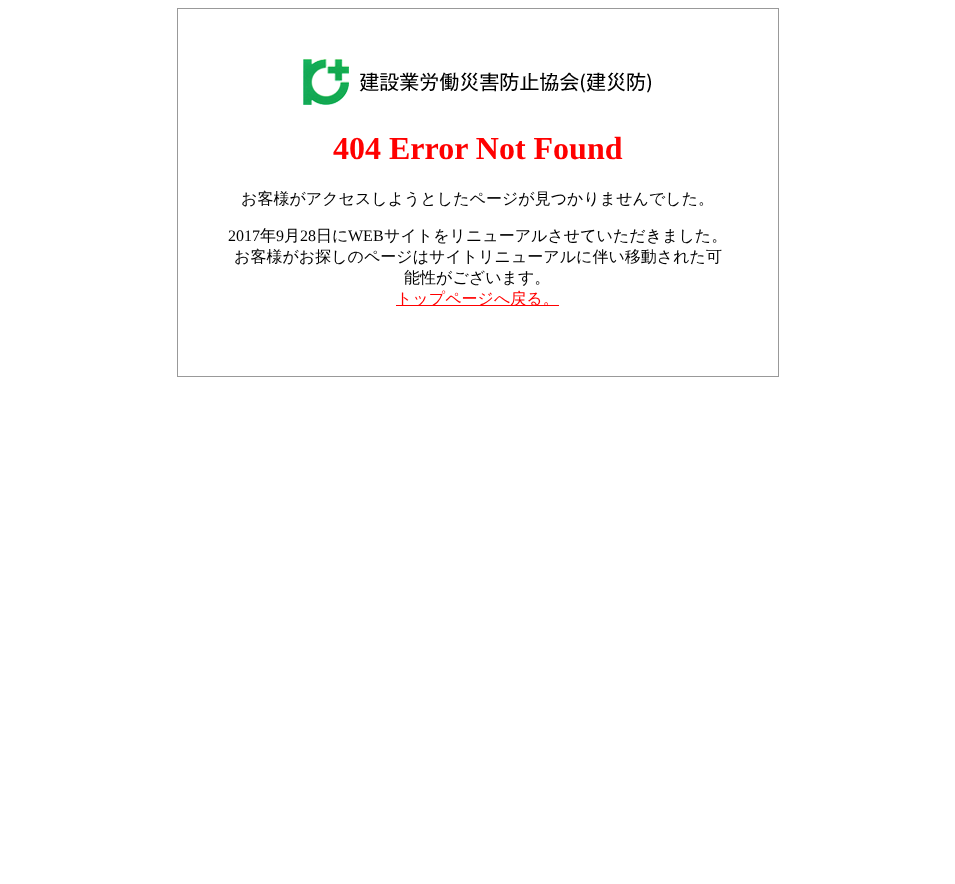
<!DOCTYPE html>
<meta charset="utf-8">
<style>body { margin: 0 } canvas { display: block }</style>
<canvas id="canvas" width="955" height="884"></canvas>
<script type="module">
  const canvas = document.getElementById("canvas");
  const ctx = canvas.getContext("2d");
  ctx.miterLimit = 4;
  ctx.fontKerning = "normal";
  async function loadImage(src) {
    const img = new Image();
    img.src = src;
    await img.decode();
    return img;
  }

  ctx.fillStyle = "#ffffff";
  ctx.fillRect(0, 0, 955, 884);
  ctx.strokeStyle = "#999999";
  ctx.strokeRect(177.5, 8.5, 601, 368);
  ctx.drawImage(await loadImage("img1.png"), 303, 59, 348, 46);
  ctx.font = "bold 32px Liberation Serif";
  ctx.fillStyle = "#ff0000";
  ctx.fillText("404 Error Not Found", 333, 159);
  ctx.font = "500 16px WenQuanYi Zen Hei";
  ctx.fillStyle = "#000000";
  ctx.fillText("お客様がアクセスしようとしたページが見つかりませんでした。", 241, 204);
  ctx.font = "16px Liberation Serif";
  ctx.fillText("2017", 228, 241);
  ctx.font = "500 16px WenQuanYi Zen Hei";
  ctx.fillText("年", 260, 241);
  ctx.font = "16px Liberation Serif";
  ctx.fillText("9", 276, 241);
  ctx.font = "500 16px WenQuanYi Zen Hei";
  ctx.fillText("月", 284, 241);
  ctx.font = "16px Liberation Serif";
  ctx.fillText("28", 300, 241);
  ctx.font = "500 16px WenQuanYi Zen Hei";
  ctx.fillText("日に", 316, 241);
  ctx.font = "16px Liberation Serif";
  ctx.fillText("WEB", 348, 241);
  ctx.font = "500 16px WenQuanYi Zen Hei";
  ctx.fillText("サイトをリニューアルさせていただきました。", 384, 241);
  ctx.fillText("お客様がお探しのページはサイトリニューアルに伴い移動された可", 234, 262);
  ctx.fillText("能性がございます。", 404, 283);
  ctx.fillStyle = "#ff0000";
  ctx.fillRect(396, 305, 163, 1);
  ctx.fillText("トップページへ戻る。", 396, 304);
</script>
